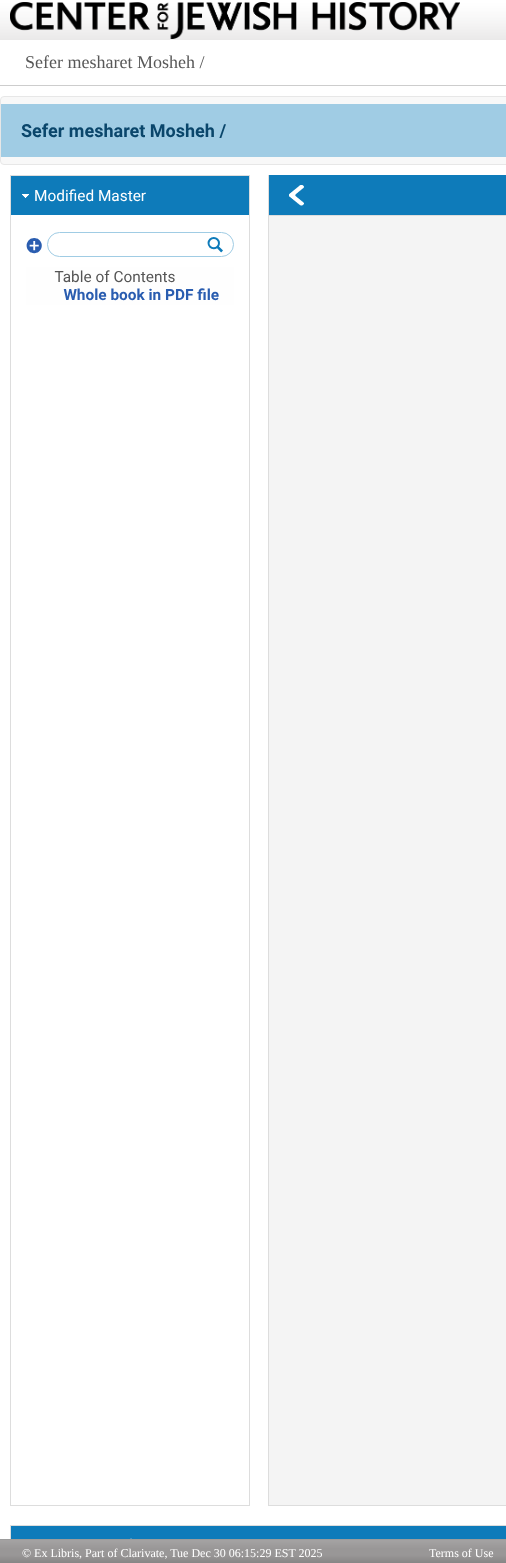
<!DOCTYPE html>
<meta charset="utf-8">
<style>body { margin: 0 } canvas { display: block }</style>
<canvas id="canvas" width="506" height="1563"></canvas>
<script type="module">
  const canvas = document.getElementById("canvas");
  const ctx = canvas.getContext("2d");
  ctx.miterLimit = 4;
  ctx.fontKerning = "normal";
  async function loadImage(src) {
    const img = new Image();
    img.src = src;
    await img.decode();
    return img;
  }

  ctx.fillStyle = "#ffffff";
  ctx.fillRect(0, 0, 506, 1563);
  ctx.drawImage(await loadImage("img1.png"), 0, 0, 506, 40);
  ctx.drawImage(await loadImage("img2.png"), 10, 2, 450, 37);
  ctx.font = "18px Liberation Serif";
  ctx.fillStyle = "#585858";
  ctx.fillText("Sefer mesharet Mosheh /", 25, 68);
  ctx.fillStyle = "#cdcdcd";
  ctx.fillRect(0, 85, 506, 1);
  ctx.drawImage(await loadImage("img3.png"), 0, 96, 506, 1443);
  ctx.fillStyle = "#999797";
  ctx.fillRect(0, 1540, 506, 23);
  ctx.drawImage(await loadImage("img4.png"), 0, 1539, 506, 24);
  ctx.font = "12px Liberation Serif";
  ctx.fillStyle = "#ffffff";
  ctx.fillText("© Ex Libris, Part of Clarivate, Tue Dec 30 06:15:29 EST 2025", 22, 1557);
  ctx.fillText("Terms of Use", 429, 1557);
</script>
